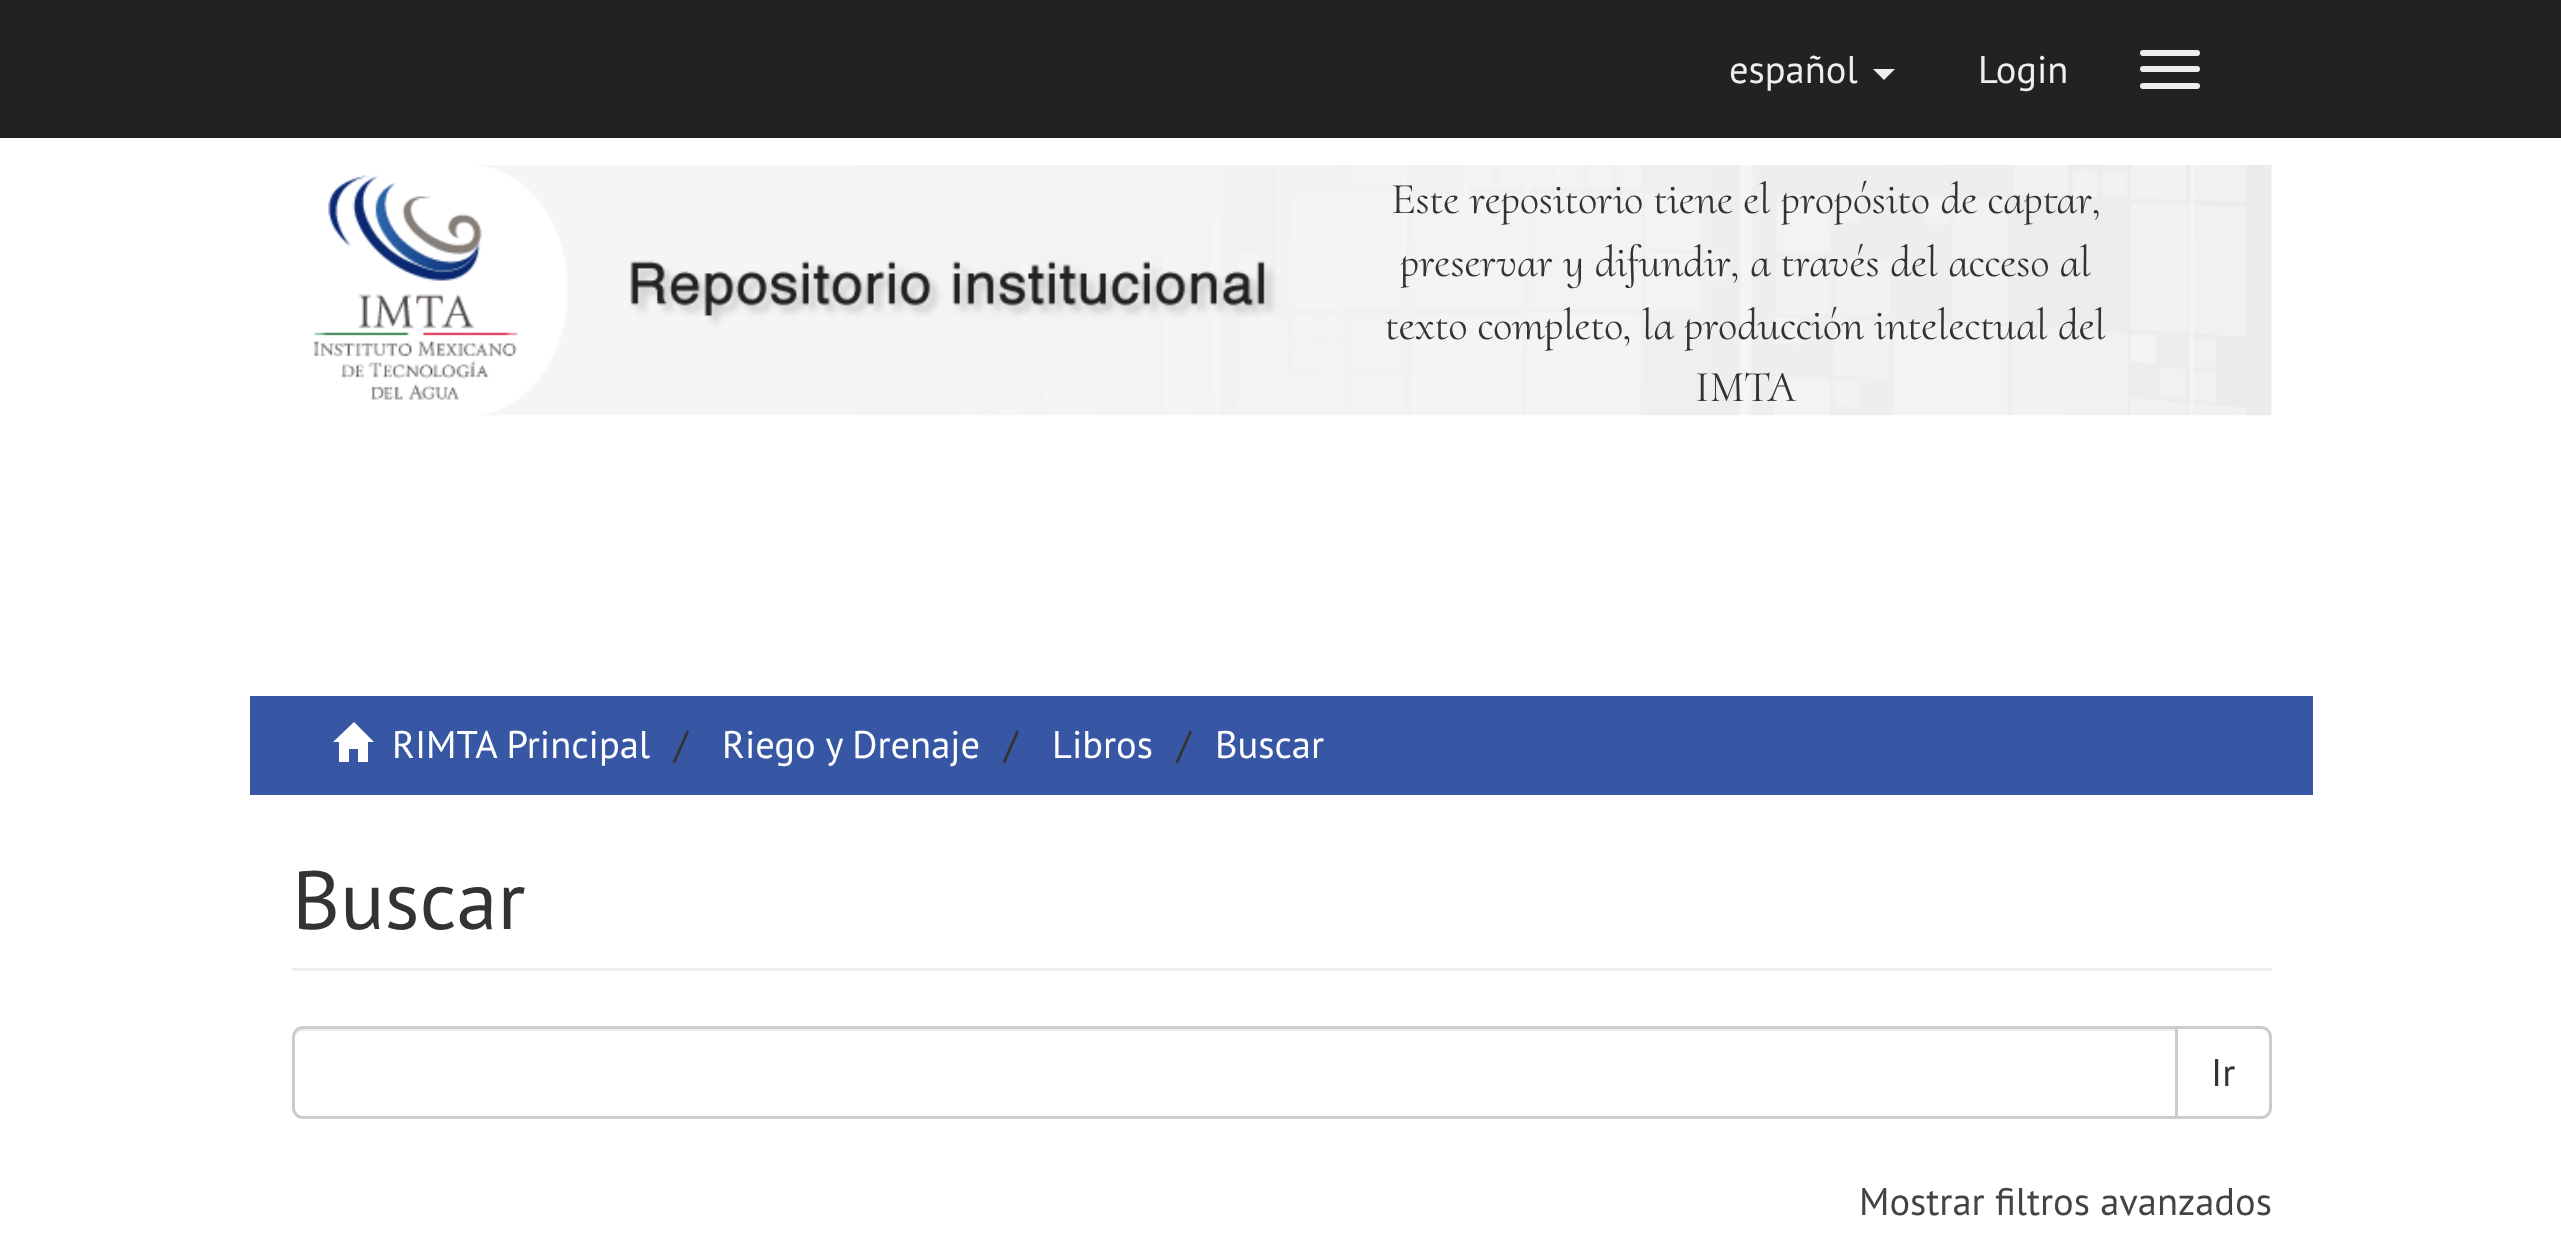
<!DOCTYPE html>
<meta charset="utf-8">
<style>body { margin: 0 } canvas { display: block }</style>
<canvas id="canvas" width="2561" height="1242"></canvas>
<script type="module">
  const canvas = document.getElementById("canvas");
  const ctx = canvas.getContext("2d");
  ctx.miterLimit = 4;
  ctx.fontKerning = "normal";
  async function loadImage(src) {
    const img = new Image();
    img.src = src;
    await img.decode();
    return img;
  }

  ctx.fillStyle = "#ffffff";
  ctx.fillRect(0, 0, 2561, 1242);
  ctx.fillStyle = "#222222";
  ctx.fillRect(0, 0, 2561, 138);
  ctx.font = "38.5px PT Sans";
  ctx.fillStyle = "#eeeeee";
  ctx.fillText("español", 1729, 83);
  ctx.beginPath();
  ctx.moveTo(1873, 69);
  ctx.lineTo(1895, 69);
  ctx.lineTo(1884, 80);
  ctx.closePath();
  ctx.fill();
  ctx.fillText("Login", 1978, 83);
  ctx.beginPath();
  ctx.roundRect(2140, 50, 60, 6, 3);
  ctx.fill();
  ctx.beginPath();
  ctx.roundRect(2140, 66, 60, 6, 3);
  ctx.fill();
  ctx.beginPath();
  ctx.roundRect(2140, 83, 60, 6, 3);
  ctx.fill();
  ctx.drawImage(await loadImage("img1.png"), 312, 165, 1960, 251);
  ctx.font = "44px Cormorant Upright";
  ctx.fillStyle = "#333333";
  ctx.fillText("Este repositorio tiene el propósito de captar,", 1391, 213);
  ctx.fillText("preservar y difundir, a través del acceso al", 1400, 276);
  ctx.fillText("texto completo, la producción intelectual del", 1385, 339);
  ctx.fillText("IMTA", 1695, 401);
  ctx.fillStyle = "#3757a4";
  ctx.fillRect(250, 696, 2063, 99);
  ctx.fillStyle = "#ffffff";
  ctx.beginPath();
  ctx.moveTo(333, 742);
  ctx.lineTo(354, 722);
  ctx.lineTo(374, 742);
  ctx.lineTo(368, 742);
  ctx.lineTo(368, 762);
  ctx.lineTo(358, 762);
  ctx.lineTo(358, 749);
  ctx.lineTo(349, 749);
  ctx.lineTo(349, 762);
  ctx.lineTo(339, 762);
  ctx.lineTo(339, 742);
  ctx.closePath();
  ctx.fill();
  ctx.font = "38.5px PT Sans";
  ctx.fillText("RIMTA Principal", 392, 758);
  ctx.fillStyle = "#333333";
  ctx.fillText("/", 674, 758);
  ctx.fillStyle = "#ffffff";
  ctx.fillText("Riego y Drenaje", 722, 758);
  ctx.fillStyle = "#333333";
  ctx.fillText("/", 1004, 758);
  ctx.fillStyle = "#ffffff";
  ctx.fillText("Libros", 1052, 758);
  ctx.fillStyle = "#333333";
  ctx.fillText("/", 1177, 758);
  ctx.fillStyle = "#ffffff";
  ctx.fillText("Buscar", 1215, 758);
  ctx.fillStyle = "#eeeeee";
  ctx.fillRect(292, 968, 1980, 3);
  ctx.font = "82.5px PT Sans";
  ctx.fillStyle = "#333333";
  ctx.fillText("Buscar", 292, 929);
  ctx.beginPath();
  ctx.roundRect(2176.5, 1027.5, 94, 90, [0, 9.5, 9.5, 0]);
  ctx.strokeStyle = "#cccccc";
  ctx.lineWidth = 3;
  ctx.stroke();
  ctx.fillStyle = "#ffffff";
  ctx.beginPath();
  ctx.roundRect(292, 1026, 1886, 93, [11, 0, 0, 11]);
  ctx.fill();
  ctx.fillStyle = "#ececec";
  ctx.beginPath();
  ctx.moveTo(302, 1031);
  ctx.lineTo(2175, 1031);
  ctx.lineTo(2175, 1029);
  ctx.lineTo(302, 1029);
  ctx.bezierCurveTo(296, 1029, 294, 1035, 294, 1040);
  ctx.bezierCurveTo(294, 1035, 298, 1031, 302, 1031);
  ctx.closePath();
  ctx.fill();
  ctx.beginPath();
  ctx.roundRect(293.5, 1027.5, 1883, 90, [9.5, 0, 0, 9.5]);
  ctx.stroke();
  ctx.font = "38.5px PT Sans";
  ctx.fillStyle = "#333333";
  ctx.fillText("Ir", 2211, 1086);
  ctx.fillStyle = "#444444";
  ctx.fillText("Mostrar filtros avanzados", 1859, 1215);
</script>
